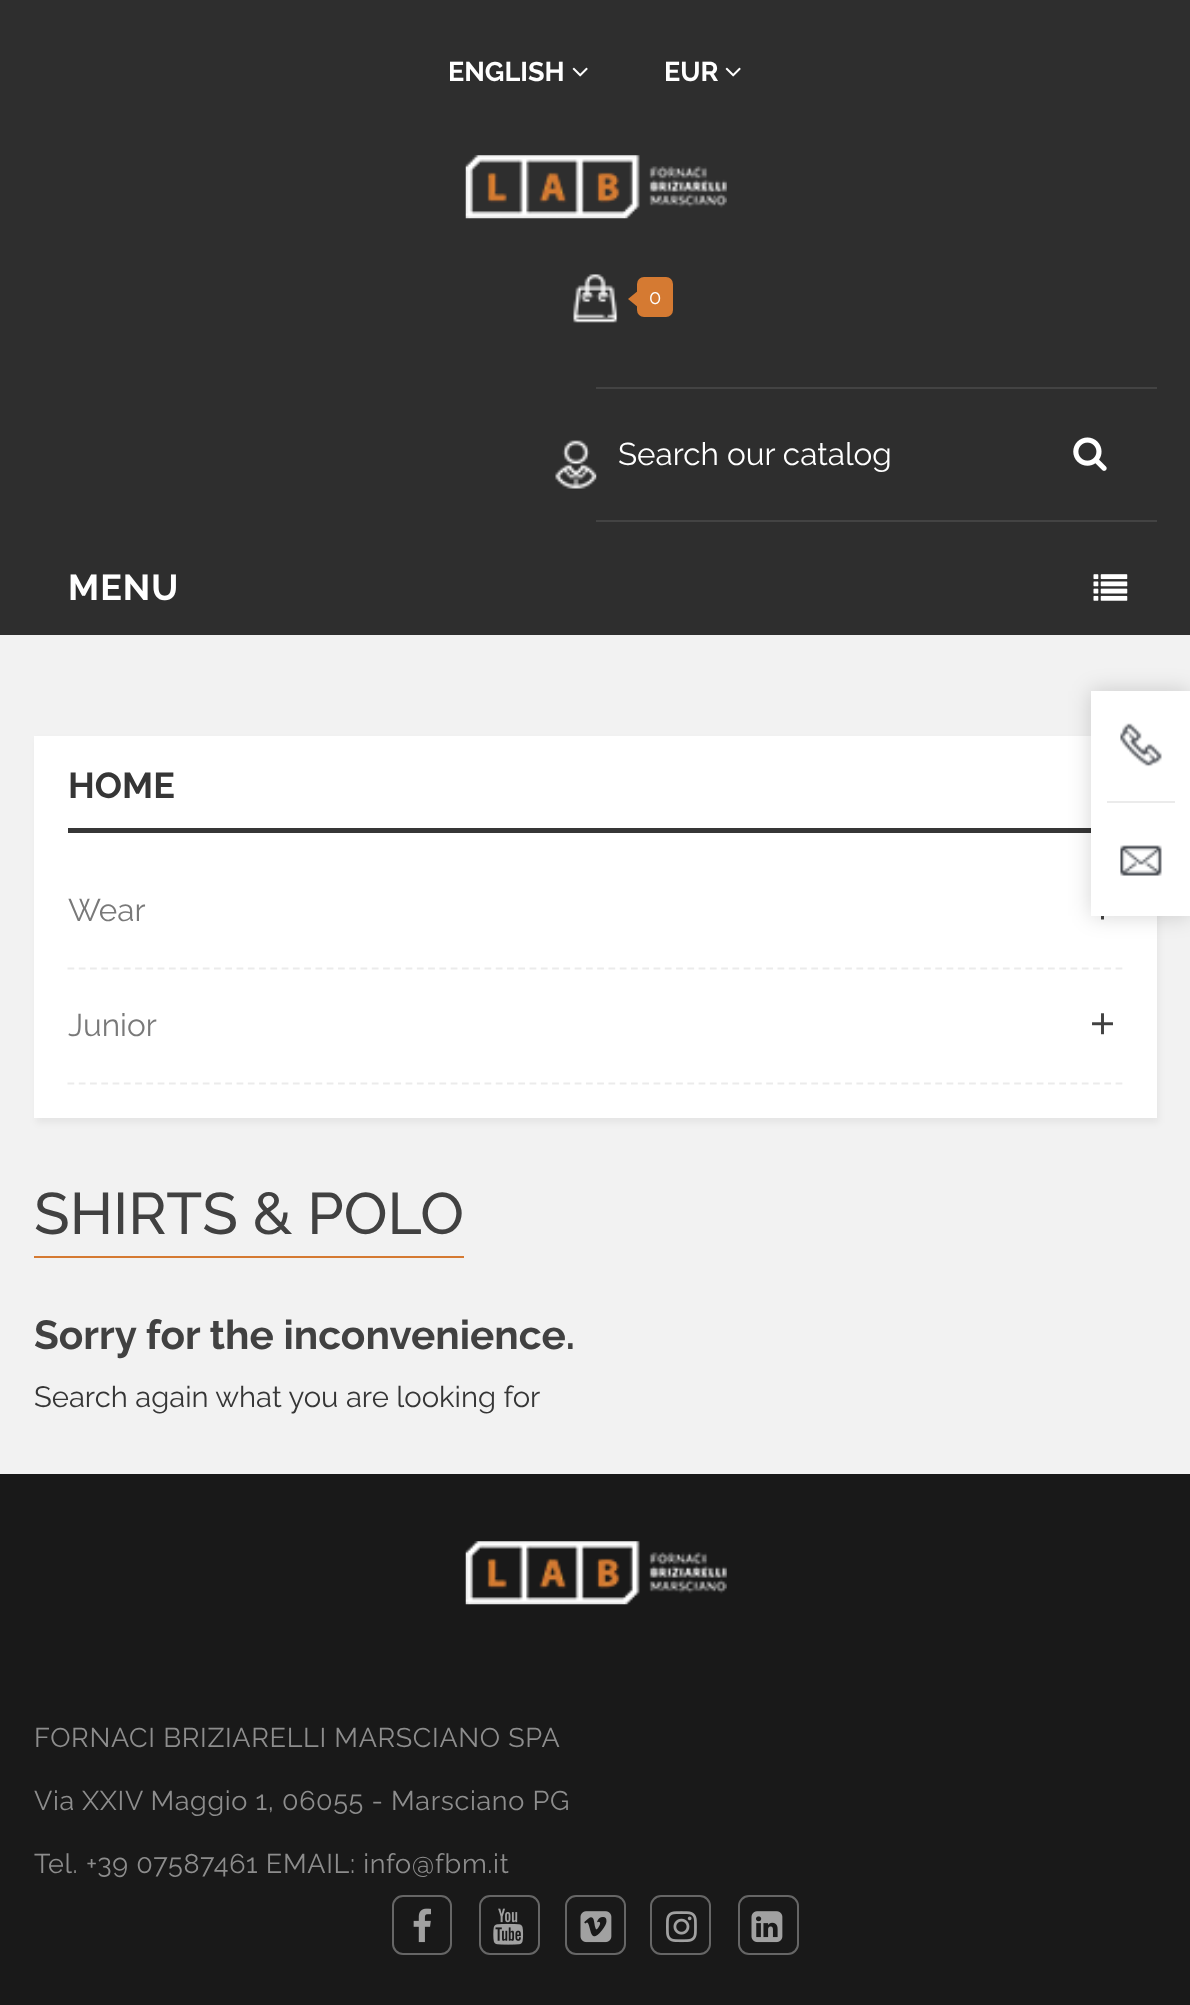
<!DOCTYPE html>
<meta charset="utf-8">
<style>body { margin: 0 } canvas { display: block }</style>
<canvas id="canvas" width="1190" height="2005"></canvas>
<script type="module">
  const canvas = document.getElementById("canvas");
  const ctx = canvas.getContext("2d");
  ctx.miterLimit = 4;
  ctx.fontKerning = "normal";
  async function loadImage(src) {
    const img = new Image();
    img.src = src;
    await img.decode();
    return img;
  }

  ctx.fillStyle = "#f2f2f2";
  ctx.fillRect(0, 0, 1190, 2005);
  ctx.fillStyle = "#2e2e2e";
  ctx.fillRect(0, 0, 1190, 635);
  ctx.font = "bold 27px Raleway";
  ctx.fillStyle = "#ffffff";
  ctx.fillText("ENGLISH", 448, 81);
  ctx.drawImage(await loadImage("img1.png"), 572, 67, 16, 10);
  ctx.fillText("EUR", 664, 81);
  ctx.drawImage(await loadImage("img1.png"), 725, 67, 16, 10);
  ctx.drawImage(await loadImage("img2.png"), 465, 155, 262, 64);
  ctx.drawImage(await loadImage("img3.png"), 573, 274, 45, 49);
  ctx.fillStyle = "#d57a32";
  ctx.beginPath();
  ctx.roundRect(637, 277, 36, 40, 7);
  ctx.fill();
  ctx.beginPath();
  ctx.moveTo(639, 290);
  ctx.lineTo(639, 308);
  ctx.lineTo(628, 299);
  ctx.closePath();
  ctx.fill();
  ctx.font = "20px Raleway";
  ctx.fillStyle = "#ffffff";
  ctx.fillText("0", 649, 304);
  ctx.drawImage(await loadImage("img4.png"), 555, 440, 42, 49);
  ctx.fillStyle = "#434343";
  ctx.fillRect(596, 387, 561, 2);
  ctx.fillRect(596, 520, 561, 2);
  ctx.font = "31.5px Raleway";
  ctx.fillStyle = "#ffffff";
  ctx.fillText("Search our catalog", 618, 465);
  ctx.drawImage(await loadImage("img5.png"), 1073, 437, 34, 34);
  ctx.letterSpacing = "1px";
  ctx.font = "bold 36px Raleway";
  ctx.fillText("MENU", 68, 600);
  ctx.drawImage(await loadImage("img6.png"), 1093, 574, 35, 27);
  ctx.fillStyle = "rgba(0, 0, 0, 0.05)";
  ctx.filter = "blur(3.5px)";
  ctx.beginPath();
  ctx.rect(36, 740, 1123, 383);
  ctx.fill();
  ctx.filter = "none";
  ctx.fillStyle = "#ffffff";
  ctx.fillRect(34, 736, 1123, 382);
  ctx.fillStyle = "#363636";
  ctx.fillRect(68, 828, 1023, 5);
  ctx.drawImage(await loadImage("img9.png"), 1101, 916, 3, 4);
  ctx.fillStyle = "rgba(0, 0, 0, 0.17)";
  ctx.filter = "blur(11px)";
  ctx.beginPath();
  ctx.rect(1091, 691, 99, 225);
  ctx.fill();
  ctx.filter = "none";
  ctx.fillStyle = "#ffffff";
  ctx.fillRect(1091, 691, 99, 225);
  ctx.drawImage(await loadImage("img7.png"), 1120, 723, 42, 44);
  ctx.fillStyle = "#ebebeb";
  ctx.fillRect(1107, 801, 68, 2);
  ctx.drawImage(await loadImage("img8.png"), 1120, 845, 42, 31);
  ctx.letterSpacing = "0px";
  ctx.fillStyle = "#363636";
  ctx.fillText("HOME", 68, 798);
  ctx.beginPath();
  ctx.moveTo(67.5, 968.5);
  ctx.lineTo(1123, 968.5);
  ctx.strokeStyle = "#ebebeb";
  ctx.lineWidth = 2.2;
  ctx.setLineDash([6.75, 4.52]);
  ctx.stroke();
  ctx.font = "31.5px Raleway";
  ctx.fillStyle = "#797979";
  ctx.fillText("Wear", 68, 921);
  ctx.beginPath();
  ctx.moveTo(67.5, 1083.5);
  ctx.lineTo(1123, 1083.5);
  ctx.stroke();
  ctx.fillText("Junior", 68, 1036);
  ctx.drawImage(await loadImage("img10.png"), 1092, 1013, 21, 22);
  ctx.fillStyle = "#d57a32";
  ctx.fillRect(34, 1256, 430, 2);
  ctx.font = "500 58.5px Raleway";
  ctx.fillStyle = "#414141";
  ctx.fillText("SHIRTS & POLO", 34, 1234);
  ctx.font = "bold 40.5px Raleway";
  ctx.fillText("Sorry for the inconvenience.", 34, 1349);
  ctx.font = "29.25px Raleway";
  ctx.fillStyle = "#363636";
  ctx.fillText("Search again what you are looking for", 34, 1407);
  ctx.fillStyle = "#191919";
  ctx.fillRect(0, 1474, 1190, 531);
  ctx.drawImage(await loadImage("img11.png"), 465, 1541, 262, 64);
  ctx.letterSpacing = "0.65px";
  ctx.font = "27px Raleway";
  ctx.fillStyle = "#8d8d8d";
  ctx.fillText("FORNACI BRIZIARELLI MARSCIANO SPA", 34, 1747);
  ctx.fillText("Via XXIV Maggio 1, 06055 - Marsciano PG", 34, 1810);
  ctx.fillText("Tel. +39 07587461 EMAIL: info@fbm.it", 34, 1873);
  ctx.beginPath();
  ctx.roundRect(393, 1896, 58, 58, 10);
  ctx.strokeStyle = "#666666";
  ctx.lineWidth = 2;
  ctx.setLineDash([]);
  ctx.stroke();
  ctx.drawImage(await loadImage("img12.png"), 413, 1908, 18, 35);
  ctx.beginPath();
  ctx.roundRect(480, 1896, 59, 58, 10);
  ctx.stroke();
  ctx.drawImage(await loadImage("img13.png"), 493, 1908, 31, 37);
  ctx.beginPath();
  ctx.roundRect(566, 1896, 59, 58, 10);
  ctx.stroke();
  ctx.drawImage(await loadImage("img14.png"), 580, 1911, 32, 32);
  ctx.beginPath();
  ctx.roundRect(651, 1896, 59, 58, 10);
  ctx.stroke();
  ctx.drawImage(await loadImage("img15.png"), 666, 1911, 31, 32);
  ctx.beginPath();
  ctx.roundRect(739, 1896, 59, 58, 10);
  ctx.stroke();
  ctx.drawImage(await loadImage("img16.png"), 751, 1911, 32, 32);
</script>
